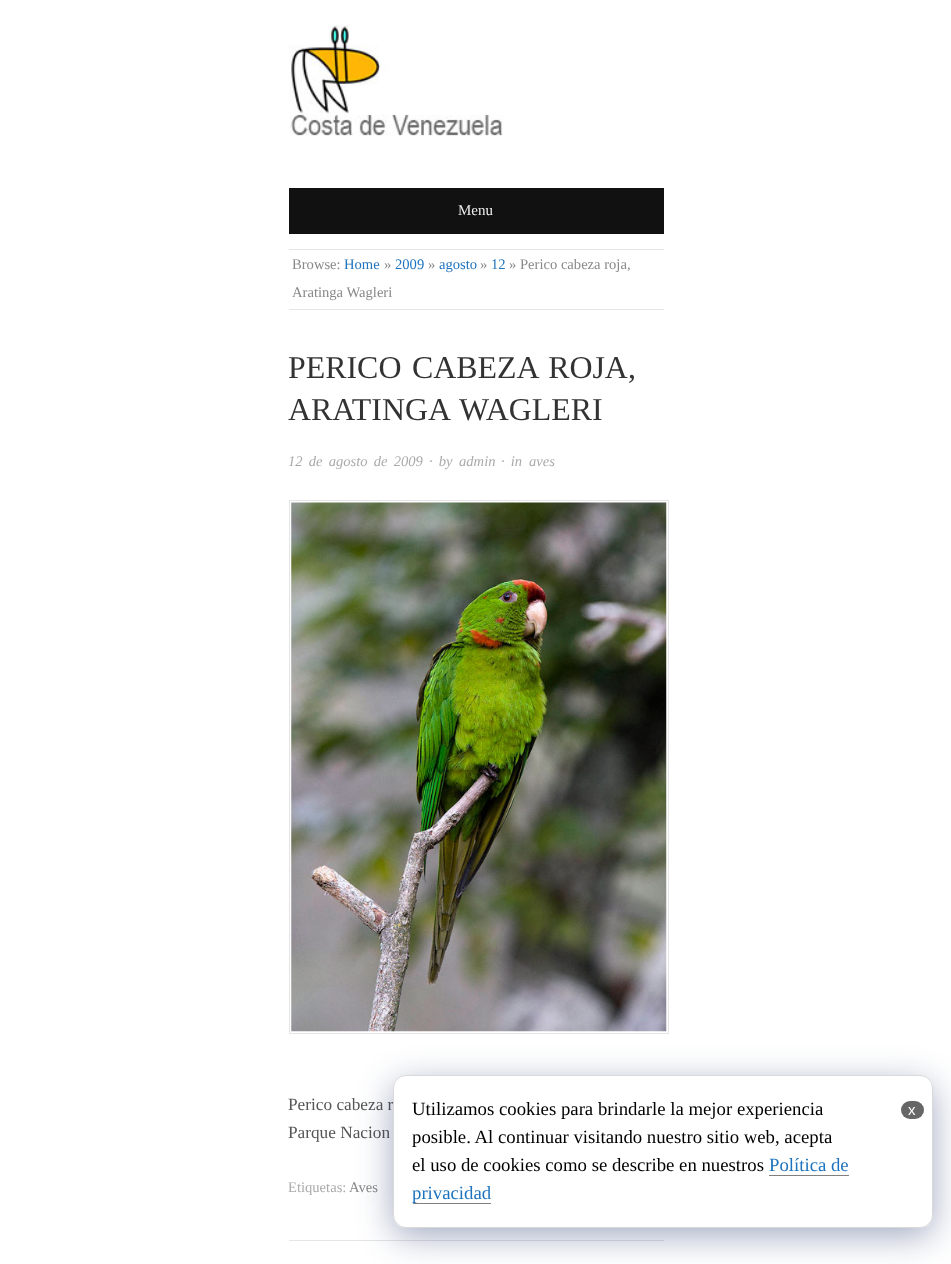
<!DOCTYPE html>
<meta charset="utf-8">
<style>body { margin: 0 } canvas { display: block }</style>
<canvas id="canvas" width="951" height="1264"></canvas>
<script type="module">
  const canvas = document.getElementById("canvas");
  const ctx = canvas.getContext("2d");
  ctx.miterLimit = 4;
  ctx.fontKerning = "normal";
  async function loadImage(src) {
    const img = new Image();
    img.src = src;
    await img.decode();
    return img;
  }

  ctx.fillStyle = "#ffffff";
  ctx.fillRect(0, 0, 951, 1264);
  ctx.drawImage(await loadImage("img1.png"), 289, 25, 214, 111);
  ctx.fillStyle = "#111111";
  ctx.fillRect(289, 188, 375, 46);
  ctx.font = "15px Liberation Serif";
  ctx.fillStyle = "#eeeeee";
  ctx.fillText("Menu", 458, 215);
  ctx.fillStyle = "#e5e5e5";
  ctx.fillRect(289, 249, 375, 1);
  ctx.fillRect(289, 309, 375, 1);
  ctx.font = "14.6px Liberation Serif";
  ctx.fillStyle = "#888888";
  ctx.fillText("Browse:", 292, 269);
  ctx.fillStyle = "#1e73be";
  ctx.fillText("Home", 344, 269);
  ctx.fillStyle = "#888888";
  ctx.fillText("»", 384, 269);
  ctx.fillStyle = "#1e73be";
  ctx.fillText("2009", 395, 269);
  ctx.fillStyle = "#888888";
  ctx.fillText("»", 428, 269);
  ctx.fillStyle = "#1e73be";
  ctx.fillText("agosto", 439, 269);
  ctx.fillStyle = "#888888";
  ctx.fillText("»", 480, 269);
  ctx.fillStyle = "#1e73be";
  ctx.fillText("12", 491, 269);
  ctx.fillStyle = "#888888";
  ctx.fillText("» Perico cabeza roja,", 509, 269);
  ctx.fillText("Aratinga Wagleri", 292, 297);
  ctx.fillStyle = "#e5e5e5";
  ctx.fillRect(289, 1240, 375, 1);
  ctx.wordSpacing = "2.5px";
  ctx.font = "31.9px Liberation Serif";
  ctx.fillStyle = "#333333";
  ctx.fillText("PERICO CABEZA ROJA,", 288, 378);
  ctx.fillText("ARATINGA WAGLERI", 288, 420);
  ctx.font = "italic 14.6px Liberation Serif";
  ctx.fillStyle = "#aaaaaa";
  ctx.fillText("12 de agosto de 2009", 288, 466);
  ctx.fillText("· by", 429, 466);
  ctx.wordSpacing = "0px";
  ctx.fillText("admin", 459, 466);
  ctx.wordSpacing = "2.5px";
  ctx.fillText("· in", 501, 466);
  ctx.wordSpacing = "0px";
  ctx.fillText("aves", 529, 466);
  ctx.strokeStyle = "#e5e5e5";
  ctx.strokeRect(289.5, 500.5, 379, 533);
  ctx.drawImage(await loadImage("img2.png"), 291, 502, 376, 530);
  ctx.font = "17.25px Liberation Serif";
  ctx.fillStyle = "#555555";
  ctx.fillText("Perico cabeza r", 288, 1110);
  ctx.fillText("Parque Nacion", 288, 1138);
  ctx.font = "14.6px Liberation Serif";
  ctx.fillStyle = "#aaaaaa";
  ctx.fillText("Etiquetas:", 288, 1192);
  ctx.fillStyle = "#888888";
  ctx.fillText("Aves", 349, 1192);
  ctx.fillStyle = "rgba(23, 43, 99, 0.4)";
  ctx.filter = "blur(17.5px)";
  ctx.beginPath();
  ctx.roundRect(393, 1084, 540, 152, 13);
  ctx.fill();
  ctx.filter = "none";
  ctx.fillStyle = "#ffffff";
  ctx.beginPath();
  ctx.roundRect(393, 1075, 540, 153, 13);
  ctx.fill();
  ctx.beginPath();
  ctx.roundRect(393.5, 1075.5, 539, 152, 12.5);
  ctx.strokeStyle = "rgba(0, 0, 0, 0.15)";
  ctx.stroke();
  ctx.font = "18.75px Liberation Serif";
  ctx.fillStyle = "#000000";
  ctx.fillText("Utilizamos cookies para brindarle la mejor experiencia", 412, 1115);
  ctx.fillText("posible. Al continuar visitando nuestro sitio web, acepta", 412, 1143);
  ctx.fillText("el uso de cookies como se describe en nuestros", 412, 1171);
  ctx.fillStyle = "#1e73be";
  ctx.fillText("Política de", 769, 1171);
  ctx.fillStyle = "#808080";
  ctx.fillRect(769, 1175, 80, 1);
  ctx.fillStyle = "#1e73be";
  ctx.fillText("privacidad", 412, 1199);
  ctx.fillStyle = "#808080";
  ctx.fillRect(413, 1203, 78, 1);
  ctx.fillStyle = "#666666";
  ctx.beginPath();
  ctx.roundRect(901, 1101, 23, 18, 9);
  ctx.fill();
  ctx.font = "15px Liberation Sans";
  ctx.fillStyle = "#ffffff";
  ctx.fillText("x", 908, 1115);
</script>
